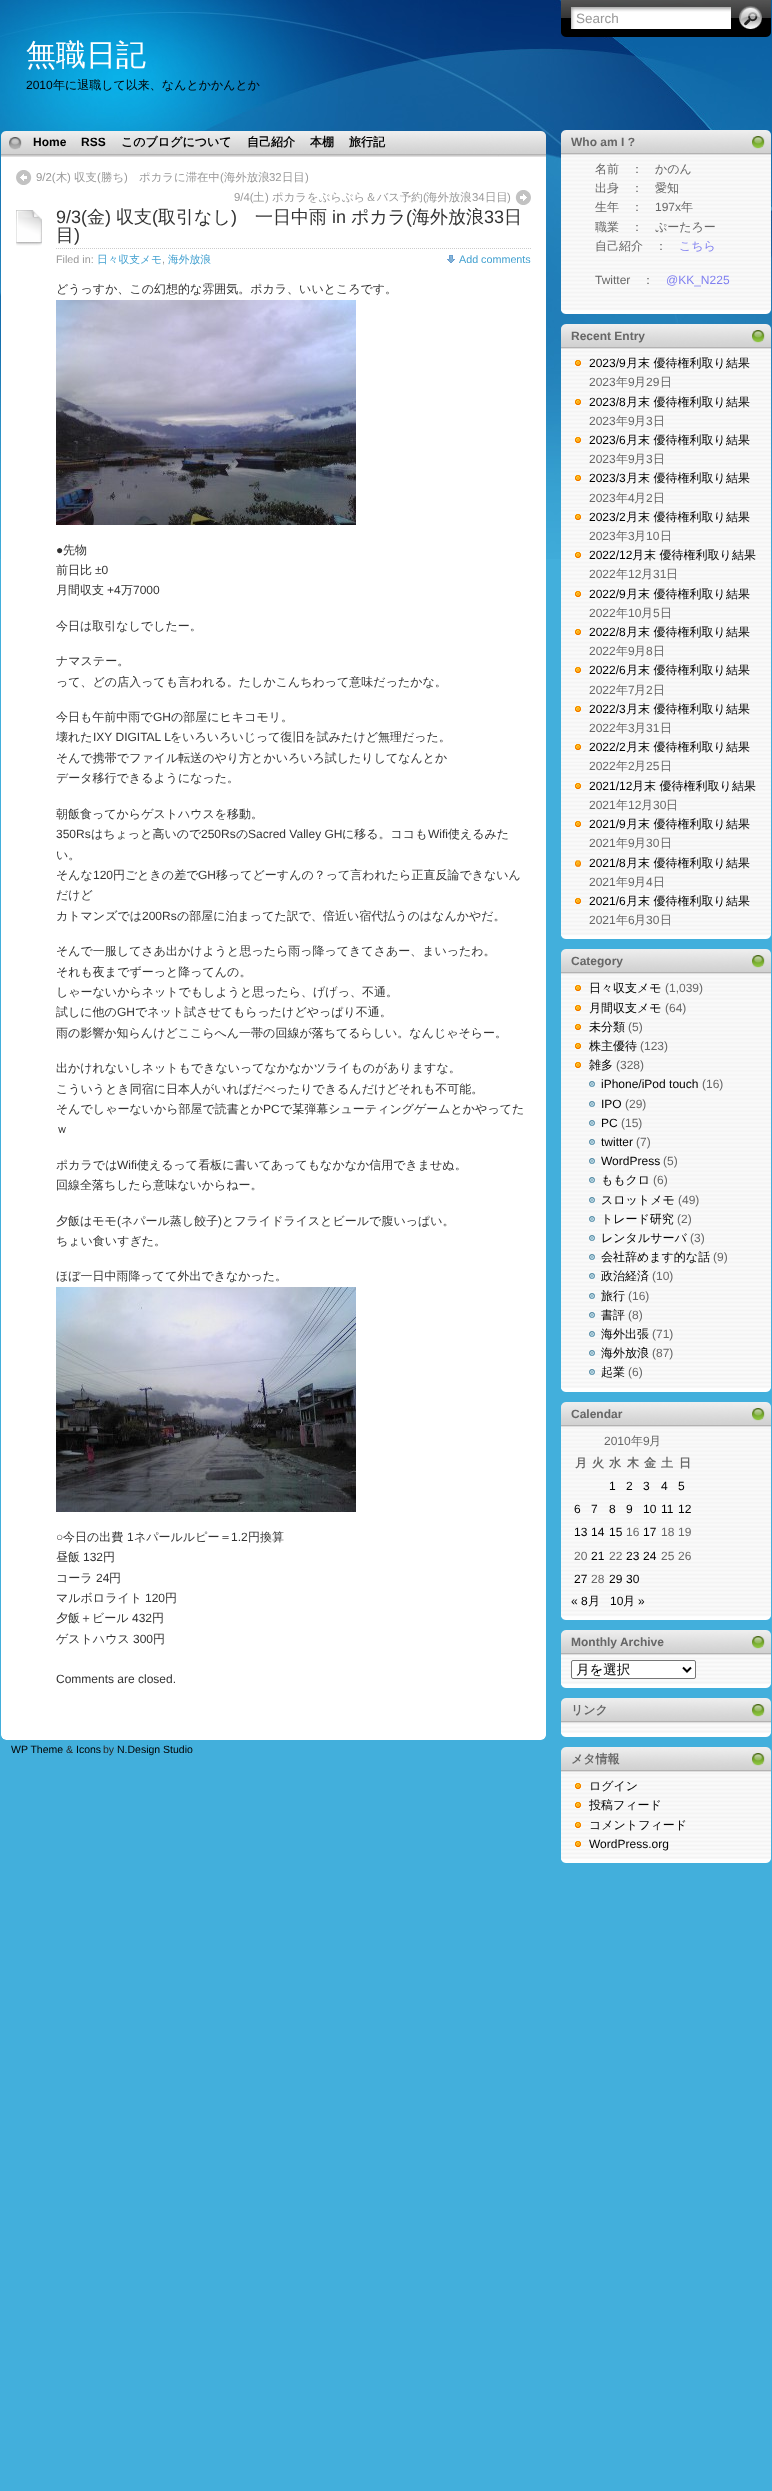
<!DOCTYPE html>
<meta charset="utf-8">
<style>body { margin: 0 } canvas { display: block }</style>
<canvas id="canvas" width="772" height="2491"></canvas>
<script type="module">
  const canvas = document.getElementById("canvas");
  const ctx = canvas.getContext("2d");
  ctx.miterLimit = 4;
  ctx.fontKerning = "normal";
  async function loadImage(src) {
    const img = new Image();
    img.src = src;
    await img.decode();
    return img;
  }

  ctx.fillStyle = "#42afdc";
  ctx.fillRect(0, 0, 772, 2491);
  ctx.drawImage(await loadImage("img1.png"), 0, 0, 772, 559);
  ctx.drawImage(await loadImage("img2.png"), 561, 0, 210, 37);
  ctx.drawImage(await loadImage("img3.png"), 571, 7, 160, 22);
  ctx.font = "13.5px Liberation Sans";
  ctx.fillStyle = "#999999";
  ctx.fillText("Search", 576, 23);
  ctx.drawImage(await loadImage("img4.png"), 739, 6, 23, 23);
  ctx.font = "500 30px WenQuanYi Zen Hei";
  ctx.fillStyle = "#ffffff";
  ctx.fillText("無職日記", 26, 65);
  ctx.font = "12px Liberation Sans";
  ctx.fillStyle = "#000000";
  ctx.fillText("2010", 26, 89);
  ctx.font = "500 12px WenQuanYi Zen Hei";
  ctx.fillText("年に退職して以来、なんとかかんとか", 53, 89);
  ctx.drawImage(await loadImage("img5.png"), 1, 131, 545, 26);
  ctx.font = "bold 12px Liberation Sans";
  ctx.fillText("Home", 33, 146);
  ctx.fillText("RSS", 81, 146);
  ctx.font = "bold 12px WenQuanYi Zen Hei";
  ctx.fillText("このブログについて", 121, 146);
  ctx.fillText("自己紹介", 247, 146);
  ctx.fillText("本棚", 310, 146);
  ctx.fillText("旅行記", 349, 146);
  ctx.fillStyle = "#ffffff";
  ctx.fillRect(1, 157, 545, 1573);
  ctx.drawImage(await loadImage("img6.png"), 16, 170, 16, 15);
  ctx.font = "11.4px Liberation Sans";
  ctx.fillStyle = "#999999";
  ctx.fillText("9/2(", 36, 181);
  ctx.font = "500 11.4px WenQuanYi Zen Hei";
  ctx.fillText("木", 56, 181);
  ctx.font = "11.4px Liberation Sans";
  ctx.fillText(")", 67, 181);
  ctx.font = "500 11.4px WenQuanYi Zen Hei";
  ctx.fillText("収支", 74, 181);
  ctx.font = "11.4px Liberation Sans";
  ctx.fillText("(", 97, 181);
  ctx.font = "500 11.4px WenQuanYi Zen Hei";
  ctx.fillText("勝ち", 101, 181);
  ctx.font = "11.4px Liberation Sans";
  ctx.fillText(")", 124, 181);
  ctx.font = "500 11.4px WenQuanYi Zen Hei";
  ctx.fillText("ポカラに滞在中", 139, 181);
  ctx.font = "11.4px Liberation Sans";
  ctx.fillText("(", 220, 181);
  ctx.font = "500 11.4px WenQuanYi Zen Hei";
  ctx.fillText("海外放浪", 224, 181);
  ctx.font = "11.4px Liberation Sans";
  ctx.fillText("32", 269, 181);
  ctx.font = "500 11.4px WenQuanYi Zen Hei";
  ctx.fillText("日目", 282, 181);
  ctx.font = "11.4px Liberation Sans";
  ctx.fillText(")", 305, 181);
  ctx.drawImage(await loadImage("img7.png"), 515, 190, 16, 15);
  ctx.fillText("9/4(", 234, 201);
  ctx.font = "500 11.4px WenQuanYi Zen Hei";
  ctx.fillText("土", 253, 201);
  ctx.font = "11.4px Liberation Sans";
  ctx.fillText(")", 265, 201);
  ctx.font = "500 11.4px WenQuanYi Zen Hei";
  ctx.fillText("ポカラをぶらぶら＆バス予約", 272, 201);
  ctx.font = "11.4px Liberation Sans";
  ctx.fillText("(", 423, 201);
  ctx.font = "500 11.4px WenQuanYi Zen Hei";
  ctx.fillText("海外放浪", 426, 201);
  ctx.font = "11.4px Liberation Sans";
  ctx.fillText("34", 472, 201);
  ctx.font = "500 11.4px WenQuanYi Zen Hei";
  ctx.fillText("日目", 485, 201);
  ctx.font = "11.4px Liberation Sans";
  ctx.fillText(")", 507, 201);
  ctx.drawImage(await loadImage("img8.png"), 16, 210, 26, 36);
  ctx.beginPath();
  ctx.moveTo(56, 248.5);
  ctx.lineTo(531, 248.5);
  ctx.strokeStyle = "#cccccc";
  ctx.setLineDash([1, 1]);
  ctx.stroke();
  ctx.font = "18px Liberation Sans";
  ctx.fillStyle = "#333333";
  ctx.fillText("9/3(", 56, 223);
  ctx.font = "500 18px WenQuanYi Zen Hei";
  ctx.fillText("金", 87, 223);
  ctx.font = "18px Liberation Sans";
  ctx.fillText(")", 105, 223);
  ctx.font = "500 18px WenQuanYi Zen Hei";
  ctx.fillText("収支", 116, 223);
  ctx.font = "18px Liberation Sans";
  ctx.fillText("(", 152, 223);
  ctx.font = "500 18px WenQuanYi Zen Hei";
  ctx.fillText("取引なし", 158, 223);
  ctx.font = "18px Liberation Sans";
  ctx.fillText(")", 231, 223);
  ctx.font = "500 18px WenQuanYi Zen Hei";
  ctx.fillText("一日中雨", 255, 223);
  ctx.font = "18px Liberation Sans";
  ctx.fillText("in", 332, 223);
  ctx.font = "500 18px WenQuanYi Zen Hei";
  ctx.fillText("ポカラ", 351, 223);
  ctx.font = "18px Liberation Sans";
  ctx.fillText("(", 406, 223);
  ctx.font = "500 18px WenQuanYi Zen Hei";
  ctx.fillText("海外放浪", 412, 223);
  ctx.font = "18px Liberation Sans";
  ctx.fillText("33", 484, 223);
  ctx.font = "500 18px WenQuanYi Zen Hei";
  ctx.fillText("日", 504, 223);
  ctx.fillText("目", 56, 241);
  ctx.font = "18px Liberation Sans";
  ctx.fillText(")", 74, 241);
  ctx.font = "10.75px Liberation Sans";
  ctx.fillStyle = "#999999";
  ctx.fillText("Filed in:", 56, 263);
  ctx.font = "500 10.75px WenQuanYi Zen Hei";
  ctx.fillStyle = "#44a1d0";
  ctx.fillText("日々収支メモ", 97, 263);
  ctx.font = "10.75px Liberation Sans";
  ctx.fillStyle = "#999999";
  ctx.fillText(",", 162, 263);
  ctx.font = "500 10.75px WenQuanYi Zen Hei";
  ctx.fillStyle = "#44a1d0";
  ctx.fillText("海外放浪", 168, 263);
  ctx.drawImage(await loadImage("img9.png"), 447, 255, 8, 8);
  ctx.font = "10.75px Liberation Sans";
  ctx.fillText("Add comments", 459, 263);
  ctx.font = "500 12px WenQuanYi Zen Hei";
  ctx.fillStyle = "#333333";
  ctx.fillText("どうっすか、この幻想的な雰囲気。ポカラ、いいところです。", 56, 293);
  ctx.drawImage(await loadImage("img10.png"), 56, 300, 300, 225);
  ctx.font = "12px Liberation Sans";
  ctx.fillText("●", 56, 554);
  ctx.font = "500 12px WenQuanYi Zen Hei";
  ctx.fillText("先物", 63, 554);
  ctx.fillText("前日比", 56, 574);
  ctx.font = "12px Liberation Sans";
  ctx.fillText("±0", 95, 574);
  ctx.font = "500 12px WenQuanYi Zen Hei";
  ctx.fillText("月間収支", 56, 594);
  ctx.font = "12px Liberation Sans";
  ctx.fillText("+4", 107, 594);
  ctx.font = "500 12px WenQuanYi Zen Hei";
  ctx.fillText("万", 121, 594);
  ctx.font = "12px Liberation Sans";
  ctx.fillText("7000", 133, 594);
  ctx.font = "500 12px WenQuanYi Zen Hei";
  ctx.fillText("今日は取引なしでしたー。", 56, 630);
  ctx.fillText("ナマステー。", 56, 665);
  ctx.fillText("って、どの店入っても言われる。たしかこんちわって意味だったかな。", 56, 686);
  ctx.fillText("今日も午前中雨で", 56, 721);
  ctx.font = "12px Liberation Sans";
  ctx.fillText("GH", 153, 721);
  ctx.font = "500 12px WenQuanYi Zen Hei";
  ctx.fillText("の部屋にヒキコモリ。", 171, 721);
  ctx.fillText("壊れた", 56, 741);
  ctx.font = "12px Liberation Sans";
  ctx.fillText("IXY DIGITAL L", 93, 741);
  ctx.font = "500 12px WenQuanYi Zen Hei";
  ctx.fillText("をいろいろいじって復旧を試みたけど無理だった。", 170, 741);
  ctx.fillText("そんで携帯でファイル転送のやり方とかいろいろ試したりしてなんとか", 56, 762);
  ctx.fillText("データ移行できるようになった。", 56, 782);
  ctx.fillText("朝飯食ってからゲストハウスを移動。", 56, 818);
  ctx.font = "12px Liberation Sans";
  ctx.fillText("350Rs", 56, 838);
  ctx.font = "500 12px WenQuanYi Zen Hei";
  ctx.fillText("はちょっと高いので", 91, 838);
  ctx.font = "12px Liberation Sans";
  ctx.fillText("250Rs", 201, 838);
  ctx.font = "500 12px WenQuanYi Zen Hei";
  ctx.fillText("の", 236, 838);
  ctx.font = "12px Liberation Sans";
  ctx.fillText("Sacred Valley GH", 248, 838);
  ctx.font = "500 12px WenQuanYi Zen Hei";
  ctx.fillText("に移る。ココも", 342, 838);
  ctx.font = "12px Liberation Sans";
  ctx.fillText("Wifi", 428, 838);
  ctx.font = "500 12px WenQuanYi Zen Hei";
  ctx.fillText("使えるみた", 448, 838);
  ctx.fillText("い。", 56, 859);
  ctx.fillText("そんな", 56, 879);
  ctx.font = "12px Liberation Sans";
  ctx.fillText("120", 93, 879);
  ctx.font = "500 12px WenQuanYi Zen Hei";
  ctx.fillText("円ごときの差で", 113, 879);
  ctx.font = "12px Liberation Sans";
  ctx.fillText("GH", 198, 879);
  ctx.font = "500 12px WenQuanYi Zen Hei";
  ctx.fillText("移ってどーすんの？って言われたら正直反論できないん", 216, 879);
  ctx.fillText("だけど", 56, 899);
  ctx.fillText("カトマンズでは", 56, 920);
  ctx.font = "12px Liberation Sans";
  ctx.fillText("200Rs", 142, 920);
  ctx.font = "500 12px WenQuanYi Zen Hei";
  ctx.fillText("の部屋に泊まってた訳で、倍近い宿代払うのはなんかやだ。", 177, 920);
  ctx.fillText("そんで一服してさあ出かけようと思ったら雨っ降ってきてさあー、まいったわ。", 56, 955);
  ctx.fillText("それも夜までずーっと降ってんの。", 56, 976);
  ctx.fillText("しゃーないからネットでもしようと思ったら、げげっ、不通。", 56, 996);
  ctx.fillText("試しに他の", 56, 1016);
  ctx.font = "12px Liberation Sans";
  ctx.fillText("GH", 117, 1016);
  ctx.font = "500 12px WenQuanYi Zen Hei";
  ctx.fillText("でネット試させてもらったけどやっぱり不通。", 135, 1016);
  ctx.fillText("雨の影響か知らんけどここらへん一帯の回線が落ちてるらしい。なんじゃそらー。", 56, 1037);
  ctx.fillText("出かけれないしネットもできないってなかなかツライものがありますな。", 56, 1072);
  ctx.fillText("こういうとき同宿に日本人がいればだべったりできるんだけどそれも不可能。", 56, 1093);
  ctx.fillText("そんでしゃーないから部屋で読書とか", 56, 1113);
  ctx.font = "12px Liberation Sans";
  ctx.fillText("PC", 263, 1113);
  ctx.font = "500 12px WenQuanYi Zen Hei";
  ctx.fillText("で某弾幕シューティングゲームとかやってた", 280, 1113);
  ctx.fillText("ｗ", 56, 1133);
  ctx.fillText("ポカラでは", 56, 1169);
  ctx.font = "12px Liberation Sans";
  ctx.fillText("Wifi", 117, 1169);
  ctx.font = "500 12px WenQuanYi Zen Hei";
  ctx.fillText("使えるって看板に書いてあってもなかなか信用できませぬ。", 137, 1169);
  ctx.fillText("回線全落ちしたら意味ないからねー。", 56, 1189);
  ctx.fillText("夕飯はモモ", 56, 1225);
  ctx.font = "12px Liberation Sans";
  ctx.fillText("(", 117, 1225);
  ctx.font = "500 12px WenQuanYi Zen Hei";
  ctx.fillText("ネパール蒸し餃子", 121, 1225);
  ctx.font = "12px Liberation Sans";
  ctx.fillText(")", 218, 1225);
  ctx.font = "500 12px WenQuanYi Zen Hei";
  ctx.fillText("とフライドライスとビールで腹いっぱい。", 222, 1225);
  ctx.fillText("ちょい食いすぎた。", 56, 1245);
  ctx.fillText("ほぼ一日中雨降ってて外出できなかった。", 56, 1280);
  ctx.drawImage(await loadImage("img11.png"), 56, 1287, 300, 225);
  ctx.font = "12px Liberation Sans";
  ctx.fillText("○", 56, 1541);
  ctx.font = "500 12px WenQuanYi Zen Hei";
  ctx.fillText("今日の出費", 63, 1541);
  ctx.font = "12px Liberation Sans";
  ctx.fillText("1", 127, 1541);
  ctx.font = "500 12px WenQuanYi Zen Hei";
  ctx.fillText("ネパールルピー＝", 134, 1541);
  ctx.font = "12px Liberation Sans";
  ctx.fillText("1.2", 231, 1541);
  ctx.font = "500 12px WenQuanYi Zen Hei";
  ctx.fillText("円換算", 248, 1541);
  ctx.fillText("昼飯", 56, 1561);
  ctx.font = "12px Liberation Sans";
  ctx.fillText("132", 83, 1561);
  ctx.font = "500 12px WenQuanYi Zen Hei";
  ctx.fillText("円", 103, 1561);
  ctx.fillText("コーラ", 56, 1582);
  ctx.font = "12px Liberation Sans";
  ctx.fillText("24", 96, 1582);
  ctx.font = "500 12px WenQuanYi Zen Hei";
  ctx.fillText("円", 109, 1582);
  ctx.fillText("マルボロライト", 56, 1602);
  ctx.font = "12px Liberation Sans";
  ctx.fillText("120", 145, 1602);
  ctx.font = "500 12px WenQuanYi Zen Hei";
  ctx.fillText("円", 165, 1602);
  ctx.fillText("夕飯＋ビール", 56, 1622);
  ctx.font = "12px Liberation Sans";
  ctx.fillText("432", 132, 1622);
  ctx.font = "500 12px WenQuanYi Zen Hei";
  ctx.fillText("円", 152, 1622);
  ctx.fillText("ゲストハウス", 56, 1643);
  ctx.font = "12px Liberation Sans";
  ctx.fillText("300", 133, 1643);
  ctx.font = "500 12px WenQuanYi Zen Hei";
  ctx.fillText("円", 153, 1643);
  ctx.font = "12px Liberation Sans";
  ctx.fillText("Comments are closed.", 56, 1683);
  ctx.drawImage(await loadImage("img12.png"), 1, 1730, 545, 10);
  ctx.font = "10.5px Liberation Sans";
  ctx.fillStyle = "#000000";
  ctx.fillText("WP Theme", 11, 1753);
  ctx.fillStyle = "#282828";
  ctx.fillText("&", 66, 1753);
  ctx.fillStyle = "#000000";
  ctx.fillText("Icons", 76, 1753);
  ctx.fillStyle = "#282828";
  ctx.fillText("by", 103, 1753);
  ctx.fillStyle = "#000000";
  ctx.fillText("N.Design Studio", 117, 1753);
  ctx.drawImage(await loadImage("img13.png"), 561, 130, 210, 25);
  ctx.font = "bold 12px Liberation Sans";
  ctx.fillStyle = "#666666";
  ctx.fillText("Who am I ?", 571, 146);
  ctx.drawImage(await loadImage("img14.png"), 752, 136, 13, 13);
  ctx.drawImage(await loadImage("img15.png"), 561, 155, 210, 159);
  ctx.font = "500 12px WenQuanYi Zen Hei";
  ctx.fillText("名前　：　かのん", 595, 173);
  ctx.fillText("出身　：　愛知", 595, 192);
  ctx.fillText("生年　：", 595, 211);
  ctx.font = "12px Liberation Sans";
  ctx.fillText("197x", 655, 211);
  ctx.font = "500 12px WenQuanYi Zen Hei";
  ctx.fillText("年", 681, 211);
  ctx.fillText("職業　：　ぷーたろー", 595, 231);
  ctx.fillText("自己紹介　：", 595, 250);
  ctx.fillStyle = "#8080f0";
  ctx.fillText("こちら", 679, 250);
  ctx.font = "12px Liberation Sans";
  ctx.fillStyle = "#666666";
  ctx.fillText("Twitter", 595, 284);
  ctx.font = "500 12px WenQuanYi Zen Hei";
  ctx.fillText("：", 642, 284);
  ctx.font = "12px Liberation Sans";
  ctx.fillStyle = "#8080f0";
  ctx.fillText("@KK_N225", 666, 284);
  ctx.drawImage(await loadImage("img16.png"), 561, 324, 210, 25);
  ctx.font = "bold 12px Liberation Sans";
  ctx.fillStyle = "#666666";
  ctx.fillText("Recent Entry", 571, 340);
  ctx.drawImage(await loadImage("img14.png"), 752, 330, 13, 13);
  ctx.drawImage(await loadImage("img17.png"), 561, 349, 210, 590);
  ctx.drawImage(await loadImage("img18.png"), 575, 360, 6, 6);
  ctx.font = "12px Liberation Sans";
  ctx.fillStyle = "#000000";
  ctx.fillText("2023/9", 589, 367);
  ctx.font = "500 12px WenQuanYi Zen Hei";
  ctx.fillText("月末 優待権利取り結果", 626, 367);
  ctx.font = "12px Liberation Sans";
  ctx.fillStyle = "#666666";
  ctx.fillText("2023", 589, 386);
  ctx.font = "500 12px WenQuanYi Zen Hei";
  ctx.fillText("年", 616, 386);
  ctx.font = "12px Liberation Sans";
  ctx.fillText("9", 628, 386);
  ctx.font = "500 12px WenQuanYi Zen Hei";
  ctx.fillText("月", 634, 386);
  ctx.font = "12px Liberation Sans";
  ctx.fillText("29", 646, 386);
  ctx.font = "500 12px WenQuanYi Zen Hei";
  ctx.fillText("日", 660, 386);
  ctx.drawImage(await loadImage("img19.png"), 575, 399, 6, 6);
  ctx.font = "12px Liberation Sans";
  ctx.fillStyle = "#000000";
  ctx.fillText("2023/8", 589, 406);
  ctx.font = "500 12px WenQuanYi Zen Hei";
  ctx.fillText("月末 優待権利取り結果", 626, 406);
  ctx.font = "12px Liberation Sans";
  ctx.fillStyle = "#666666";
  ctx.fillText("2023", 589, 425);
  ctx.font = "500 12px WenQuanYi Zen Hei";
  ctx.fillText("年", 616, 425);
  ctx.font = "12px Liberation Sans";
  ctx.fillText("9", 628, 425);
  ctx.font = "500 12px WenQuanYi Zen Hei";
  ctx.fillText("月", 634, 425);
  ctx.font = "12px Liberation Sans";
  ctx.fillText("3", 646, 425);
  ctx.font = "500 12px WenQuanYi Zen Hei";
  ctx.fillText("日", 653, 425);
  ctx.drawImage(await loadImage("img20.png"), 575, 437, 6, 6);
  ctx.font = "12px Liberation Sans";
  ctx.fillStyle = "#000000";
  ctx.fillText("2023/6", 589, 444);
  ctx.font = "500 12px WenQuanYi Zen Hei";
  ctx.fillText("月末 優待権利取り結果", 626, 444);
  ctx.font = "12px Liberation Sans";
  ctx.fillStyle = "#666666";
  ctx.fillText("2023", 589, 463);
  ctx.font = "500 12px WenQuanYi Zen Hei";
  ctx.fillText("年", 616, 463);
  ctx.font = "12px Liberation Sans";
  ctx.fillText("9", 628, 463);
  ctx.font = "500 12px WenQuanYi Zen Hei";
  ctx.fillText("月", 634, 463);
  ctx.font = "12px Liberation Sans";
  ctx.fillText("3", 646, 463);
  ctx.font = "500 12px WenQuanYi Zen Hei";
  ctx.fillText("日", 653, 463);
  ctx.drawImage(await loadImage("img19.png"), 575, 475, 6, 6);
  ctx.font = "12px Liberation Sans";
  ctx.fillStyle = "#000000";
  ctx.fillText("2023/3", 589, 482);
  ctx.font = "500 12px WenQuanYi Zen Hei";
  ctx.fillText("月末 優待権利取り結果", 626, 482);
  ctx.font = "12px Liberation Sans";
  ctx.fillStyle = "#666666";
  ctx.fillText("2023", 589, 502);
  ctx.font = "500 12px WenQuanYi Zen Hei";
  ctx.fillText("年", 616, 502);
  ctx.font = "12px Liberation Sans";
  ctx.fillText("4", 628, 502);
  ctx.font = "500 12px WenQuanYi Zen Hei";
  ctx.fillText("月", 634, 502);
  ctx.font = "12px Liberation Sans";
  ctx.fillText("2", 646, 502);
  ctx.font = "500 12px WenQuanYi Zen Hei";
  ctx.fillText("日", 653, 502);
  ctx.drawImage(await loadImage("img19.png"), 575, 514, 6, 6);
  ctx.font = "12px Liberation Sans";
  ctx.fillStyle = "#000000";
  ctx.fillText("2023/2", 589, 521);
  ctx.font = "500 12px WenQuanYi Zen Hei";
  ctx.fillText("月末 優待権利取り結果", 626, 521);
  ctx.font = "12px Liberation Sans";
  ctx.fillStyle = "#666666";
  ctx.fillText("2023", 589, 540);
  ctx.font = "500 12px WenQuanYi Zen Hei";
  ctx.fillText("年", 616, 540);
  ctx.font = "12px Liberation Sans";
  ctx.fillText("3", 628, 540);
  ctx.font = "500 12px WenQuanYi Zen Hei";
  ctx.fillText("月", 634, 540);
  ctx.font = "12px Liberation Sans";
  ctx.fillText("10", 646, 540);
  ctx.font = "500 12px WenQuanYi Zen Hei";
  ctx.fillText("日", 660, 540);
  ctx.drawImage(await loadImage("img20.png"), 575, 552, 6, 6);
  ctx.font = "12px Liberation Sans";
  ctx.fillStyle = "#000000";
  ctx.fillText("2022/12", 589, 559);
  ctx.font = "500 12px WenQuanYi Zen Hei";
  ctx.fillText("月末 優待権利取り結果", 632, 559);
  ctx.font = "12px Liberation Sans";
  ctx.fillStyle = "#666666";
  ctx.fillText("2022", 589, 578);
  ctx.font = "500 12px WenQuanYi Zen Hei";
  ctx.fillText("年", 616, 578);
  ctx.font = "12px Liberation Sans";
  ctx.fillText("12", 628, 578);
  ctx.font = "500 12px WenQuanYi Zen Hei";
  ctx.fillText("月", 641, 578);
  ctx.font = "12px Liberation Sans";
  ctx.fillText("31", 653, 578);
  ctx.font = "500 12px WenQuanYi Zen Hei";
  ctx.fillText("日", 666, 578);
  ctx.drawImage(await loadImage("img18.png"), 575, 591, 6, 6);
  ctx.font = "12px Liberation Sans";
  ctx.fillStyle = "#000000";
  ctx.fillText("2022/9", 589, 598);
  ctx.font = "500 12px WenQuanYi Zen Hei";
  ctx.fillText("月末 優待権利取り結果", 626, 598);
  ctx.font = "12px Liberation Sans";
  ctx.fillStyle = "#666666";
  ctx.fillText("2022", 589, 617);
  ctx.font = "500 12px WenQuanYi Zen Hei";
  ctx.fillText("年", 616, 617);
  ctx.font = "12px Liberation Sans";
  ctx.fillText("10", 628, 617);
  ctx.font = "500 12px WenQuanYi Zen Hei";
  ctx.fillText("月", 641, 617);
  ctx.font = "12px Liberation Sans";
  ctx.fillText("5", 653, 617);
  ctx.font = "500 12px WenQuanYi Zen Hei";
  ctx.fillText("日", 660, 617);
  ctx.drawImage(await loadImage("img21.png"), 575, 629, 6, 6);
  ctx.font = "12px Liberation Sans";
  ctx.fillStyle = "#000000";
  ctx.fillText("2022/8", 589, 636);
  ctx.font = "500 12px WenQuanYi Zen Hei";
  ctx.fillText("月末 優待権利取り結果", 626, 636);
  ctx.font = "12px Liberation Sans";
  ctx.fillStyle = "#666666";
  ctx.fillText("2022", 589, 655);
  ctx.font = "500 12px WenQuanYi Zen Hei";
  ctx.fillText("年", 616, 655);
  ctx.font = "12px Liberation Sans";
  ctx.fillText("9", 628, 655);
  ctx.font = "500 12px WenQuanYi Zen Hei";
  ctx.fillText("月", 634, 655);
  ctx.font = "12px Liberation Sans";
  ctx.fillText("8", 646, 655);
  ctx.font = "500 12px WenQuanYi Zen Hei";
  ctx.fillText("日", 653, 655);
  ctx.drawImage(await loadImage("img18.png"), 575, 667, 6, 6);
  ctx.font = "12px Liberation Sans";
  ctx.fillStyle = "#000000";
  ctx.fillText("2022/6", 589, 674);
  ctx.font = "500 12px WenQuanYi Zen Hei";
  ctx.fillText("月末 優待権利取り結果", 626, 674);
  ctx.font = "12px Liberation Sans";
  ctx.fillStyle = "#666666";
  ctx.fillText("2022", 589, 694);
  ctx.font = "500 12px WenQuanYi Zen Hei";
  ctx.fillText("年", 616, 694);
  ctx.font = "12px Liberation Sans";
  ctx.fillText("7", 628, 694);
  ctx.font = "500 12px WenQuanYi Zen Hei";
  ctx.fillText("月", 634, 694);
  ctx.font = "12px Liberation Sans";
  ctx.fillText("2", 646, 694);
  ctx.font = "500 12px WenQuanYi Zen Hei";
  ctx.fillText("日", 653, 694);
  ctx.drawImage(await loadImage("img19.png"), 575, 706, 6, 6);
  ctx.font = "12px Liberation Sans";
  ctx.fillStyle = "#000000";
  ctx.fillText("2022/3", 589, 713);
  ctx.font = "500 12px WenQuanYi Zen Hei";
  ctx.fillText("月末 優待権利取り結果", 626, 713);
  ctx.font = "12px Liberation Sans";
  ctx.fillStyle = "#666666";
  ctx.fillText("2022", 589, 732);
  ctx.font = "500 12px WenQuanYi Zen Hei";
  ctx.fillText("年", 616, 732);
  ctx.font = "12px Liberation Sans";
  ctx.fillText("3", 628, 732);
  ctx.font = "500 12px WenQuanYi Zen Hei";
  ctx.fillText("月", 634, 732);
  ctx.font = "12px Liberation Sans";
  ctx.fillText("31", 646, 732);
  ctx.font = "500 12px WenQuanYi Zen Hei";
  ctx.fillText("日", 660, 732);
  ctx.drawImage(await loadImage("img20.png"), 575, 744, 6, 6);
  ctx.font = "12px Liberation Sans";
  ctx.fillStyle = "#000000";
  ctx.fillText("2022/2", 589, 751);
  ctx.font = "500 12px WenQuanYi Zen Hei";
  ctx.fillText("月末 優待権利取り結果", 626, 751);
  ctx.font = "12px Liberation Sans";
  ctx.fillStyle = "#666666";
  ctx.fillText("2022", 589, 770);
  ctx.font = "500 12px WenQuanYi Zen Hei";
  ctx.fillText("年", 616, 770);
  ctx.font = "12px Liberation Sans";
  ctx.fillText("2", 628, 770);
  ctx.font = "500 12px WenQuanYi Zen Hei";
  ctx.fillText("月", 634, 770);
  ctx.font = "12px Liberation Sans";
  ctx.fillText("25", 646, 770);
  ctx.font = "500 12px WenQuanYi Zen Hei";
  ctx.fillText("日", 660, 770);
  ctx.drawImage(await loadImage("img20.png"), 575, 783, 6, 6);
  ctx.font = "12px Liberation Sans";
  ctx.fillStyle = "#000000";
  ctx.fillText("2021/12", 589, 790);
  ctx.font = "500 12px WenQuanYi Zen Hei";
  ctx.fillText("月末 優待権利取り結果", 632, 790);
  ctx.font = "12px Liberation Sans";
  ctx.fillStyle = "#666666";
  ctx.fillText("2021", 589, 809);
  ctx.font = "500 12px WenQuanYi Zen Hei";
  ctx.fillText("年", 616, 809);
  ctx.font = "12px Liberation Sans";
  ctx.fillText("12", 628, 809);
  ctx.font = "500 12px WenQuanYi Zen Hei";
  ctx.fillText("月", 641, 809);
  ctx.font = "12px Liberation Sans";
  ctx.fillText("30", 653, 809);
  ctx.font = "500 12px WenQuanYi Zen Hei";
  ctx.fillText("日", 666, 809);
  ctx.drawImage(await loadImage("img19.png"), 575, 821, 6, 6);
  ctx.font = "12px Liberation Sans";
  ctx.fillStyle = "#000000";
  ctx.fillText("2021/9", 589, 828);
  ctx.font = "500 12px WenQuanYi Zen Hei";
  ctx.fillText("月末 優待権利取り結果", 626, 828);
  ctx.font = "12px Liberation Sans";
  ctx.fillStyle = "#666666";
  ctx.fillText("2021", 589, 847);
  ctx.font = "500 12px WenQuanYi Zen Hei";
  ctx.fillText("年", 616, 847);
  ctx.font = "12px Liberation Sans";
  ctx.fillText("9", 628, 847);
  ctx.font = "500 12px WenQuanYi Zen Hei";
  ctx.fillText("月", 634, 847);
  ctx.font = "12px Liberation Sans";
  ctx.fillText("30", 646, 847);
  ctx.font = "500 12px WenQuanYi Zen Hei";
  ctx.fillText("日", 660, 847);
  ctx.drawImage(await loadImage("img22.png"), 575, 860, 6, 7);
  ctx.font = "12px Liberation Sans";
  ctx.fillStyle = "#000000";
  ctx.fillText("2021/8", 589, 867);
  ctx.font = "500 12px WenQuanYi Zen Hei";
  ctx.fillText("月末 優待権利取り結果", 626, 867);
  ctx.font = "12px Liberation Sans";
  ctx.fillStyle = "#666666";
  ctx.fillText("2021", 589, 886);
  ctx.font = "500 12px WenQuanYi Zen Hei";
  ctx.fillText("年", 616, 886);
  ctx.font = "12px Liberation Sans";
  ctx.fillText("9", 628, 886);
  ctx.font = "500 12px WenQuanYi Zen Hei";
  ctx.fillText("月", 634, 886);
  ctx.font = "12px Liberation Sans";
  ctx.fillText("4", 646, 886);
  ctx.font = "500 12px WenQuanYi Zen Hei";
  ctx.fillText("日", 653, 886);
  ctx.drawImage(await loadImage("img18.png"), 575, 898, 6, 6);
  ctx.font = "12px Liberation Sans";
  ctx.fillStyle = "#000000";
  ctx.fillText("2021/6", 589, 905);
  ctx.font = "500 12px WenQuanYi Zen Hei";
  ctx.fillText("月末 優待権利取り結果", 626, 905);
  ctx.font = "12px Liberation Sans";
  ctx.fillStyle = "#666666";
  ctx.fillText("2021", 589, 924);
  ctx.font = "500 12px WenQuanYi Zen Hei";
  ctx.fillText("年", 616, 924);
  ctx.font = "12px Liberation Sans";
  ctx.fillText("6", 628, 924);
  ctx.font = "500 12px WenQuanYi Zen Hei";
  ctx.fillText("月", 634, 924);
  ctx.font = "12px Liberation Sans";
  ctx.fillText("30", 646, 924);
  ctx.font = "500 12px WenQuanYi Zen Hei";
  ctx.fillText("日", 660, 924);
  ctx.drawImage(await loadImage("img23.png"), 561, 949, 210, 25);
  ctx.font = "bold 12px Liberation Sans";
  ctx.fillText("Category", 571, 965);
  ctx.drawImage(await loadImage("img14.png"), 752, 955, 13, 13);
  ctx.drawImage(await loadImage("img24.png"), 561, 974, 210, 418);
  ctx.drawImage(await loadImage("img25.png"), 575, 985, 6, 6);
  ctx.font = "500 12px WenQuanYi Zen Hei";
  ctx.fillStyle = "#000000";
  ctx.fillText("日々収支メモ", 589, 992);
  ctx.font = "12px Liberation Sans";
  ctx.fillStyle = "#666666";
  ctx.fillText("(1,039)", 665, 992);
  ctx.drawImage(await loadImage("img26.png"), 575, 1005, 6, 6);
  ctx.font = "500 12px WenQuanYi Zen Hei";
  ctx.fillStyle = "#000000";
  ctx.fillText("月間収支メモ", 589, 1012);
  ctx.font = "12px Liberation Sans";
  ctx.fillStyle = "#666666";
  ctx.fillText("(64)", 665, 1012);
  ctx.drawImage(await loadImage("img27.png"), 575, 1024, 6, 6);
  ctx.font = "500 12px WenQuanYi Zen Hei";
  ctx.fillStyle = "#000000";
  ctx.fillText("未分類", 589, 1031);
  ctx.font = "12px Liberation Sans";
  ctx.fillStyle = "#666666";
  ctx.fillText("(5)", 628, 1031);
  ctx.drawImage(await loadImage("img28.png"), 575, 1043, 6, 6);
  ctx.font = "500 12px WenQuanYi Zen Hei";
  ctx.fillStyle = "#000000";
  ctx.fillText("株主優待", 589, 1050);
  ctx.font = "12px Liberation Sans";
  ctx.fillStyle = "#666666";
  ctx.fillText("(123)", 640, 1050);
  ctx.drawImage(await loadImage("img29.png"), 575, 1062, 6, 6);
  ctx.font = "500 12px WenQuanYi Zen Hei";
  ctx.fillStyle = "#000000";
  ctx.fillText("雑多", 589, 1069);
  ctx.font = "12px Liberation Sans";
  ctx.fillStyle = "#666666";
  ctx.fillText("(328)", 616, 1069);
  ctx.drawImage(await loadImage("img30.png"), 589, 1081, 6, 6);
  ctx.fillStyle = "#000000";
  ctx.fillText("iPhone/iPod touch", 601, 1088);
  ctx.fillStyle = "#666666";
  ctx.fillText("(16)", 702, 1088);
  ctx.drawImage(await loadImage("img30.png"), 589, 1101, 6, 6);
  ctx.fillStyle = "#000000";
  ctx.fillText("IPO", 601, 1108);
  ctx.fillStyle = "#666666";
  ctx.fillText("(29)", 625, 1108);
  ctx.drawImage(await loadImage("img31.png"), 589, 1120, 6, 6);
  ctx.fillStyle = "#000000";
  ctx.fillText("PC", 601, 1127);
  ctx.fillStyle = "#666666";
  ctx.fillText("(15)", 621, 1127);
  ctx.drawImage(await loadImage("img32.png"), 589, 1139, 6, 6);
  ctx.fillStyle = "#000000";
  ctx.fillText("twitter", 601, 1146);
  ctx.fillStyle = "#666666";
  ctx.fillText("(7)", 636, 1146);
  ctx.drawImage(await loadImage("img33.png"), 589, 1158, 6, 6);
  ctx.fillStyle = "#000000";
  ctx.fillText("WordPress", 601, 1165);
  ctx.fillStyle = "#666666";
  ctx.fillText("(5)", 663, 1165);
  ctx.drawImage(await loadImage("img30.png"), 589, 1177, 6, 6);
  ctx.font = "500 12px WenQuanYi Zen Hei";
  ctx.fillStyle = "#000000";
  ctx.fillText("ももクロ", 601, 1184);
  ctx.font = "12px Liberation Sans";
  ctx.fillStyle = "#666666";
  ctx.fillText("(6)", 653, 1184);
  ctx.drawImage(await loadImage("img34.png"), 589, 1197, 6, 6);
  ctx.font = "500 12px WenQuanYi Zen Hei";
  ctx.fillStyle = "#000000";
  ctx.fillText("スロットメモ", 601, 1204);
  ctx.font = "12px Liberation Sans";
  ctx.fillStyle = "#666666";
  ctx.fillText("(49)", 678, 1204);
  ctx.drawImage(await loadImage("img35.png"), 589, 1216, 6, 6);
  ctx.font = "500 12px WenQuanYi Zen Hei";
  ctx.fillStyle = "#000000";
  ctx.fillText("トレード研究", 601, 1223);
  ctx.font = "12px Liberation Sans";
  ctx.fillStyle = "#666666";
  ctx.fillText("(2)", 677, 1223);
  ctx.drawImage(await loadImage("img36.png"), 589, 1235, 6, 6);
  ctx.font = "500 12px WenQuanYi Zen Hei";
  ctx.fillStyle = "#000000";
  ctx.fillText("レンタルサーバ", 601, 1242);
  ctx.font = "12px Liberation Sans";
  ctx.fillStyle = "#666666";
  ctx.fillText("(3)", 690, 1242);
  ctx.drawImage(await loadImage("img37.png"), 589, 1254, 6, 6);
  ctx.font = "500 12px WenQuanYi Zen Hei";
  ctx.fillStyle = "#000000";
  ctx.fillText("会社辞めます的な話", 601, 1261);
  ctx.font = "12px Liberation Sans";
  ctx.fillStyle = "#666666";
  ctx.fillText("(9)", 713, 1261);
  ctx.drawImage(await loadImage("img38.png"), 589, 1273, 6, 6);
  ctx.font = "500 12px WenQuanYi Zen Hei";
  ctx.fillStyle = "#000000";
  ctx.fillText("政治経済", 601, 1280);
  ctx.font = "12px Liberation Sans";
  ctx.fillStyle = "#666666";
  ctx.fillText("(10)", 652, 1280);
  ctx.drawImage(await loadImage("img38.png"), 589, 1293, 6, 6);
  ctx.font = "500 12px WenQuanYi Zen Hei";
  ctx.fillStyle = "#000000";
  ctx.fillText("旅行", 601, 1300);
  ctx.font = "12px Liberation Sans";
  ctx.fillStyle = "#666666";
  ctx.fillText("(16)", 628, 1300);
  ctx.drawImage(await loadImage("img35.png"), 589, 1312, 6, 6);
  ctx.font = "500 12px WenQuanYi Zen Hei";
  ctx.fillStyle = "#000000";
  ctx.fillText("書評", 601, 1319);
  ctx.font = "12px Liberation Sans";
  ctx.fillStyle = "#666666";
  ctx.fillText("(8)", 628, 1319);
  ctx.drawImage(await loadImage("img36.png"), 589, 1331, 6, 6);
  ctx.font = "500 12px WenQuanYi Zen Hei";
  ctx.fillStyle = "#000000";
  ctx.fillText("海外出張", 601, 1338);
  ctx.font = "12px Liberation Sans";
  ctx.fillStyle = "#666666";
  ctx.fillText("(71)", 652, 1338);
  ctx.drawImage(await loadImage("img37.png"), 589, 1350, 6, 6);
  ctx.font = "500 12px WenQuanYi Zen Hei";
  ctx.fillStyle = "#000000";
  ctx.fillText("海外放浪", 601, 1357);
  ctx.font = "12px Liberation Sans";
  ctx.fillStyle = "#666666";
  ctx.fillText("(87)", 652, 1357);
  ctx.drawImage(await loadImage("img39.png"), 589, 1369, 6, 6);
  ctx.font = "500 12px WenQuanYi Zen Hei";
  ctx.fillStyle = "#000000";
  ctx.fillText("起業", 601, 1376);
  ctx.font = "12px Liberation Sans";
  ctx.fillStyle = "#666666";
  ctx.fillText("(6)", 628, 1376);
  ctx.drawImage(await loadImage("img23.png"), 561, 1402, 210, 25);
  ctx.font = "bold 12px Liberation Sans";
  ctx.fillText("Calendar", 571, 1418);
  ctx.drawImage(await loadImage("img14.png"), 752, 1408, 13, 13);
  ctx.drawImage(await loadImage("img40.png"), 561, 1427, 210, 193);
  ctx.font = "12px Liberation Sans";
  ctx.fillText("2010", 604, 1445);
  ctx.font = "500 12px WenQuanYi Zen Hei";
  ctx.fillText("年", 631, 1445);
  ctx.font = "12px Liberation Sans";
  ctx.fillText("9", 643, 1445);
  ctx.font = "500 12px WenQuanYi Zen Hei";
  ctx.fillText("月", 649, 1445);
  ctx.font = "bold 12px WenQuanYi Zen Hei";
  ctx.fillText("月", 575, 1467);
  ctx.fillText("火", 592, 1467);
  ctx.fillText("水", 609, 1467);
  ctx.fillText("木", 627, 1467);
  ctx.fillText("金", 644, 1467);
  ctx.fillText("土", 661, 1467);
  ctx.fillText("日", 679, 1467);
  ctx.font = "12px Liberation Sans";
  ctx.fillStyle = "#000000";
  ctx.fillText("1", 609, 1490);
  ctx.fillText("2", 626, 1490);
  ctx.fillText("3", 643, 1490);
  ctx.fillText("4", 661, 1490);
  ctx.fillText("5", 678, 1490);
  ctx.fillText("6", 574, 1513);
  ctx.fillText("7", 591, 1513);
  ctx.fillText("8", 609, 1513);
  ctx.fillText("9", 626, 1513);
  ctx.fillText("10", 643, 1513);
  ctx.fillText("11", 661, 1513);
  ctx.fillText("12", 678, 1513);
  ctx.fillText("13", 574, 1536);
  ctx.fillText("14", 591, 1536);
  ctx.fillText("15", 609, 1536);
  ctx.fillStyle = "#666666";
  ctx.fillText("16", 626, 1536);
  ctx.fillStyle = "#000000";
  ctx.fillText("17", 643, 1536);
  ctx.fillStyle = "#666666";
  ctx.fillText("18", 661, 1536);
  ctx.fillText("19", 678, 1536);
  ctx.fillText("20", 574, 1560);
  ctx.fillStyle = "#000000";
  ctx.fillText("21", 591, 1560);
  ctx.fillStyle = "#666666";
  ctx.fillText("22", 609, 1560);
  ctx.fillStyle = "#000000";
  ctx.fillText("23", 626, 1560);
  ctx.fillText("24", 643, 1560);
  ctx.fillStyle = "#666666";
  ctx.fillText("25", 661, 1560);
  ctx.fillText("26", 678, 1560);
  ctx.fillStyle = "#000000";
  ctx.fillText("27", 574, 1583);
  ctx.fillStyle = "#666666";
  ctx.fillText("28", 591, 1583);
  ctx.fillStyle = "#000000";
  ctx.fillText("29", 609, 1583);
  ctx.fillText("30", 626, 1583);
  ctx.fillText("« 8", 571, 1605);
  ctx.font = "500 12px WenQuanYi Zen Hei";
  ctx.fillText("月", 588, 1605);
  ctx.font = "12px Liberation Sans";
  ctx.fillText("10", 610, 1605);
  ctx.font = "500 12px WenQuanYi Zen Hei";
  ctx.fillText("月", 623, 1605);
  ctx.font = "12px Liberation Sans";
  ctx.fillText("»", 638, 1605);
  ctx.drawImage(await loadImage("img23.png"), 561, 1630, 210, 25);
  ctx.font = "bold 12px Liberation Sans";
  ctx.fillStyle = "#666666";
  ctx.fillText("Monthly Archive", 571, 1646);
  ctx.drawImage(await loadImage("img14.png"), 752, 1636, 13, 13);
  ctx.drawImage(await loadImage("img41.png"), 561, 1655, 210, 33);
  ctx.fillStyle = "#ffffff";
  ctx.beginPath();
  ctx.roundRect(571.5, 1660.5, 124, 18, 1.5);
  ctx.fill();
  ctx.strokeStyle = "#767676";
  ctx.setLineDash([]);
  ctx.stroke();
  ctx.beginPath();
  ctx.moveTo(683, 1667.5);
  ctx.lineTo(687, 1671.5);
  ctx.lineTo(691, 1667.5);
  ctx.strokeStyle = "#000000";
  ctx.lineWidth = 2;
  ctx.stroke();
  ctx.font = "500 13.5px WenQuanYi Zen Hei";
  ctx.fillStyle = "#000000";
  ctx.fillText("月を選択", 576, 1674);
  ctx.drawImage(await loadImage("img23.png"), 561, 1698, 210, 25);
  ctx.font = "bold 12px WenQuanYi Zen Hei";
  ctx.fillStyle = "#666666";
  ctx.fillText("リンク", 571, 1714);
  ctx.drawImage(await loadImage("img14.png"), 752, 1704, 13, 13);
  ctx.drawImage(await loadImage("img42.png"), 561, 1723, 210, 14);
  ctx.drawImage(await loadImage("img23.png"), 561, 1747, 210, 25);
  ctx.fillText("メタ情報", 571, 1763);
  ctx.drawImage(await loadImage("img14.png"), 752, 1753, 13, 13);
  ctx.drawImage(await loadImage("img43.png"), 561, 1772, 210, 91);
  ctx.drawImage(await loadImage("img44.png"), 575, 1783, 6, 6);
  ctx.font = "500 12px WenQuanYi Zen Hei";
  ctx.fillStyle = "#000000";
  ctx.fillText("ログイン", 589, 1790);
  ctx.drawImage(await loadImage("img45.png"), 575, 1802, 6, 6);
  ctx.fillText("投稿フィード", 589, 1809);
  ctx.drawImage(await loadImage("img45.png"), 575, 1822, 6, 6);
  ctx.fillText("コメントフィード", 589, 1829);
  ctx.drawImage(await loadImage("img46.png"), 575, 1841, 6, 6);
  ctx.font = "12px Liberation Sans";
  ctx.fillText("WordPress.org", 589, 1848);
</script>
